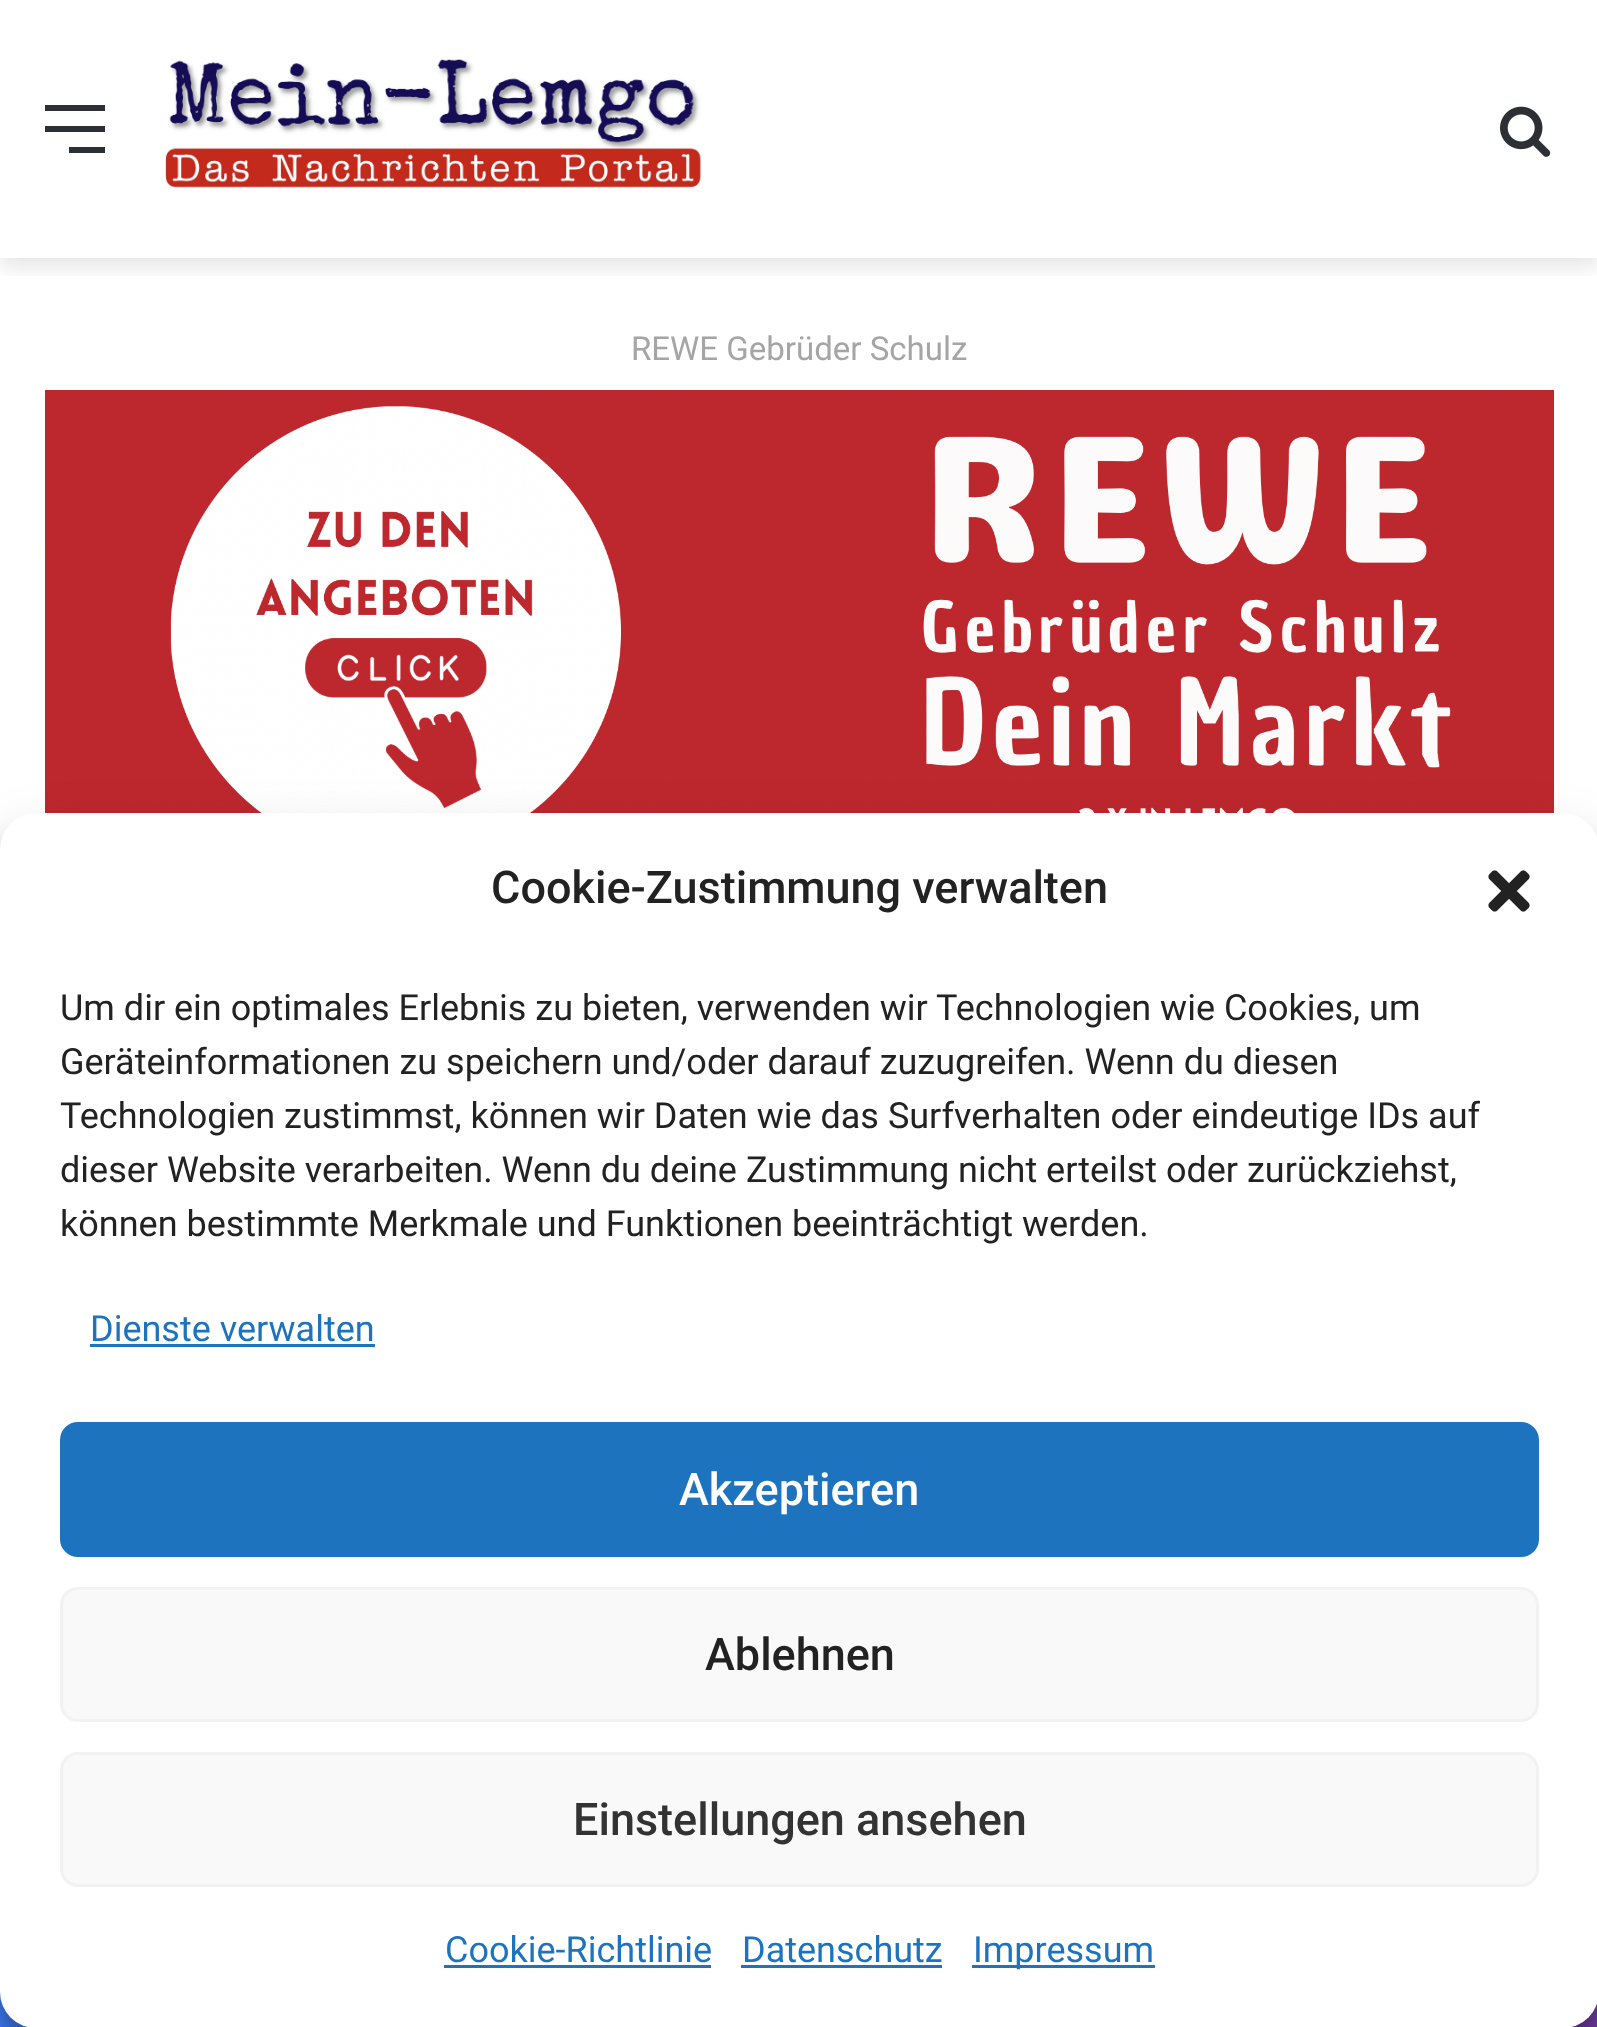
<!DOCTYPE html>
<meta charset="utf-8">
<style>body { margin: 0 } canvas { display: block }</style>
<canvas id="canvas" width="1597" height="2027"></canvas>
<script type="module">
  const canvas = document.getElementById("canvas");
  const ctx = canvas.getContext("2d");
  ctx.miterLimit = 4;
  ctx.fontKerning = "normal";
  async function loadImage(src) {
    const img = new Image();
    img.src = src;
    await img.decode();
    return img;
  }

  ctx.fillStyle = "#ffffff";
  ctx.fillRect(0, 0, 1597, 2027);
  ctx.save();
  ctx.beginPath();
  ctx.rect(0, 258, 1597, 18);
  ctx.clip();
  ctx.fillStyle = "rgba(0, 0, 0, 0.1)";
  ctx.filter = "blur(10.5px)";
  ctx.beginPath();
  ctx.rect(0, 9, 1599, 258);
  ctx.fill();
  ctx.filter = "none";
  ctx.restore();
  ctx.fillStyle = "#2c2f34";
  ctx.fillRect(45, 126, 60, 6);
  ctx.fillRect(45, 105, 60, 6);
  ctx.fillRect(69, 147, 36, 6);
  ctx.drawImage(await loadImage("img1.png"), 165, 59, 537, 129);
  ctx.drawImage(await loadImage("img2.png"), 1500, 106, 51, 51);
  ctx.font = "33px Roboto";
  ctx.fillStyle = "#a5a5a5";
  ctx.fillText("REWE Gebrüder Schulz", 631, 360);
  ctx.drawImage(await loadImage("img3.png"), 45, 390, 1509, 423);
  ctx.fillStyle = "#4080ff";
  ctx.fillRect(0, 1992, 28, 35);
  ctx.fillStyle = "#773ead";
  ctx.fillRect(1571, 2003, 26, 24);
  ctx.fillStyle = "rgba(0, 0, 0, 0.23)";
  ctx.filter = "blur(9px)";
  ctx.beginPath();
  ctx.roundRect(0, 831, 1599, 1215, 36);
  ctx.fill();
  ctx.filter = "none";
  ctx.fillStyle = "rgba(0, 0, 0, 0.19)";
  ctx.filter = "blur(30px)";
  ctx.beginPath();
  ctx.roundRect(0, 843, 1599, 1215, 36);
  ctx.fill();
  ctx.filter = "none";
  ctx.fillStyle = "#ffffff";
  ctx.beginPath();
  ctx.roundRect(0, 813, 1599, 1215, 36);
  ctx.fill();
  ctx.font = "500 45px Roboto";
  ctx.fillStyle = "#222222";
  ctx.fillText("Cookie-Zustimmung verwalten", 491, 903);
  ctx.drawImage(await loadImage("img4.png"), 1488, 870, 42, 42);
  ctx.font = "36px Roboto";
  ctx.fillText("Um dir ein optimales Erlebnis zu bieten, verwenden wir Technologien wie Cookies, um", 60, 1020);
  ctx.fillText("Geräteinformationen zu speichern und/oder darauf zuzugreifen. Wenn du diesen", 60, 1074);
  ctx.fillText("Technologien zustimmst, können wir Daten wie das Surfverhalten oder eindeutige IDs auf", 60, 1128);
  ctx.fillText("dieser Website verarbeiten. Wenn du deine Zustimmung nicht erteilst oder zurückziehst,", 60, 1182);
  ctx.fillText("können bestimmte Merkmale und Funktionen beeinträchtigt werden.", 60, 1236);
  ctx.fillStyle = "#1e73be";
  ctx.fillText("Dienste verwalten", 90, 1341);
  ctx.fillRect(90, 1344, 285, 3);
  ctx.beginPath();
  ctx.roundRect(61.5, 1423.5, 1476, 132, 16.5);
  ctx.fill();
  ctx.strokeStyle = "#1e73be";
  ctx.lineWidth = 3;
  ctx.stroke();
  ctx.font = "500 45px Roboto";
  ctx.fillStyle = "#ffffff";
  ctx.fillText("Akzeptieren", 679, 1505);
  ctx.fillStyle = "#f9f9f9";
  ctx.beginPath();
  ctx.roundRect(61.5, 1588.5, 1476, 132, 16.5);
  ctx.fill();
  ctx.strokeStyle = "#f2f2f2";
  ctx.stroke();
  ctx.fillStyle = "#222222";
  ctx.fillText("Ablehnen", 705, 1670);
  ctx.fillStyle = "#f9f9f9";
  ctx.beginPath();
  ctx.roundRect(61.5, 1753.5, 1476, 132, 16.5);
  ctx.fill();
  ctx.stroke();
  ctx.fillStyle = "#333333";
  ctx.fillText("Einstellungen ansehen", 573, 1835);
  ctx.font = "36px Roboto";
  ctx.fillStyle = "#1e73be";
  ctx.fillText("Cookie-Richtlinie", 445, 1962);
  ctx.fillRect(444, 1965, 267, 3);
  ctx.fillText("Datenschutz", 742, 1962);
  ctx.fillRect(741, 1965, 201, 3);
  ctx.fillRect(972, 1965, 183, 3);
  ctx.fillText("Impressum", 973, 1962);
</script>
